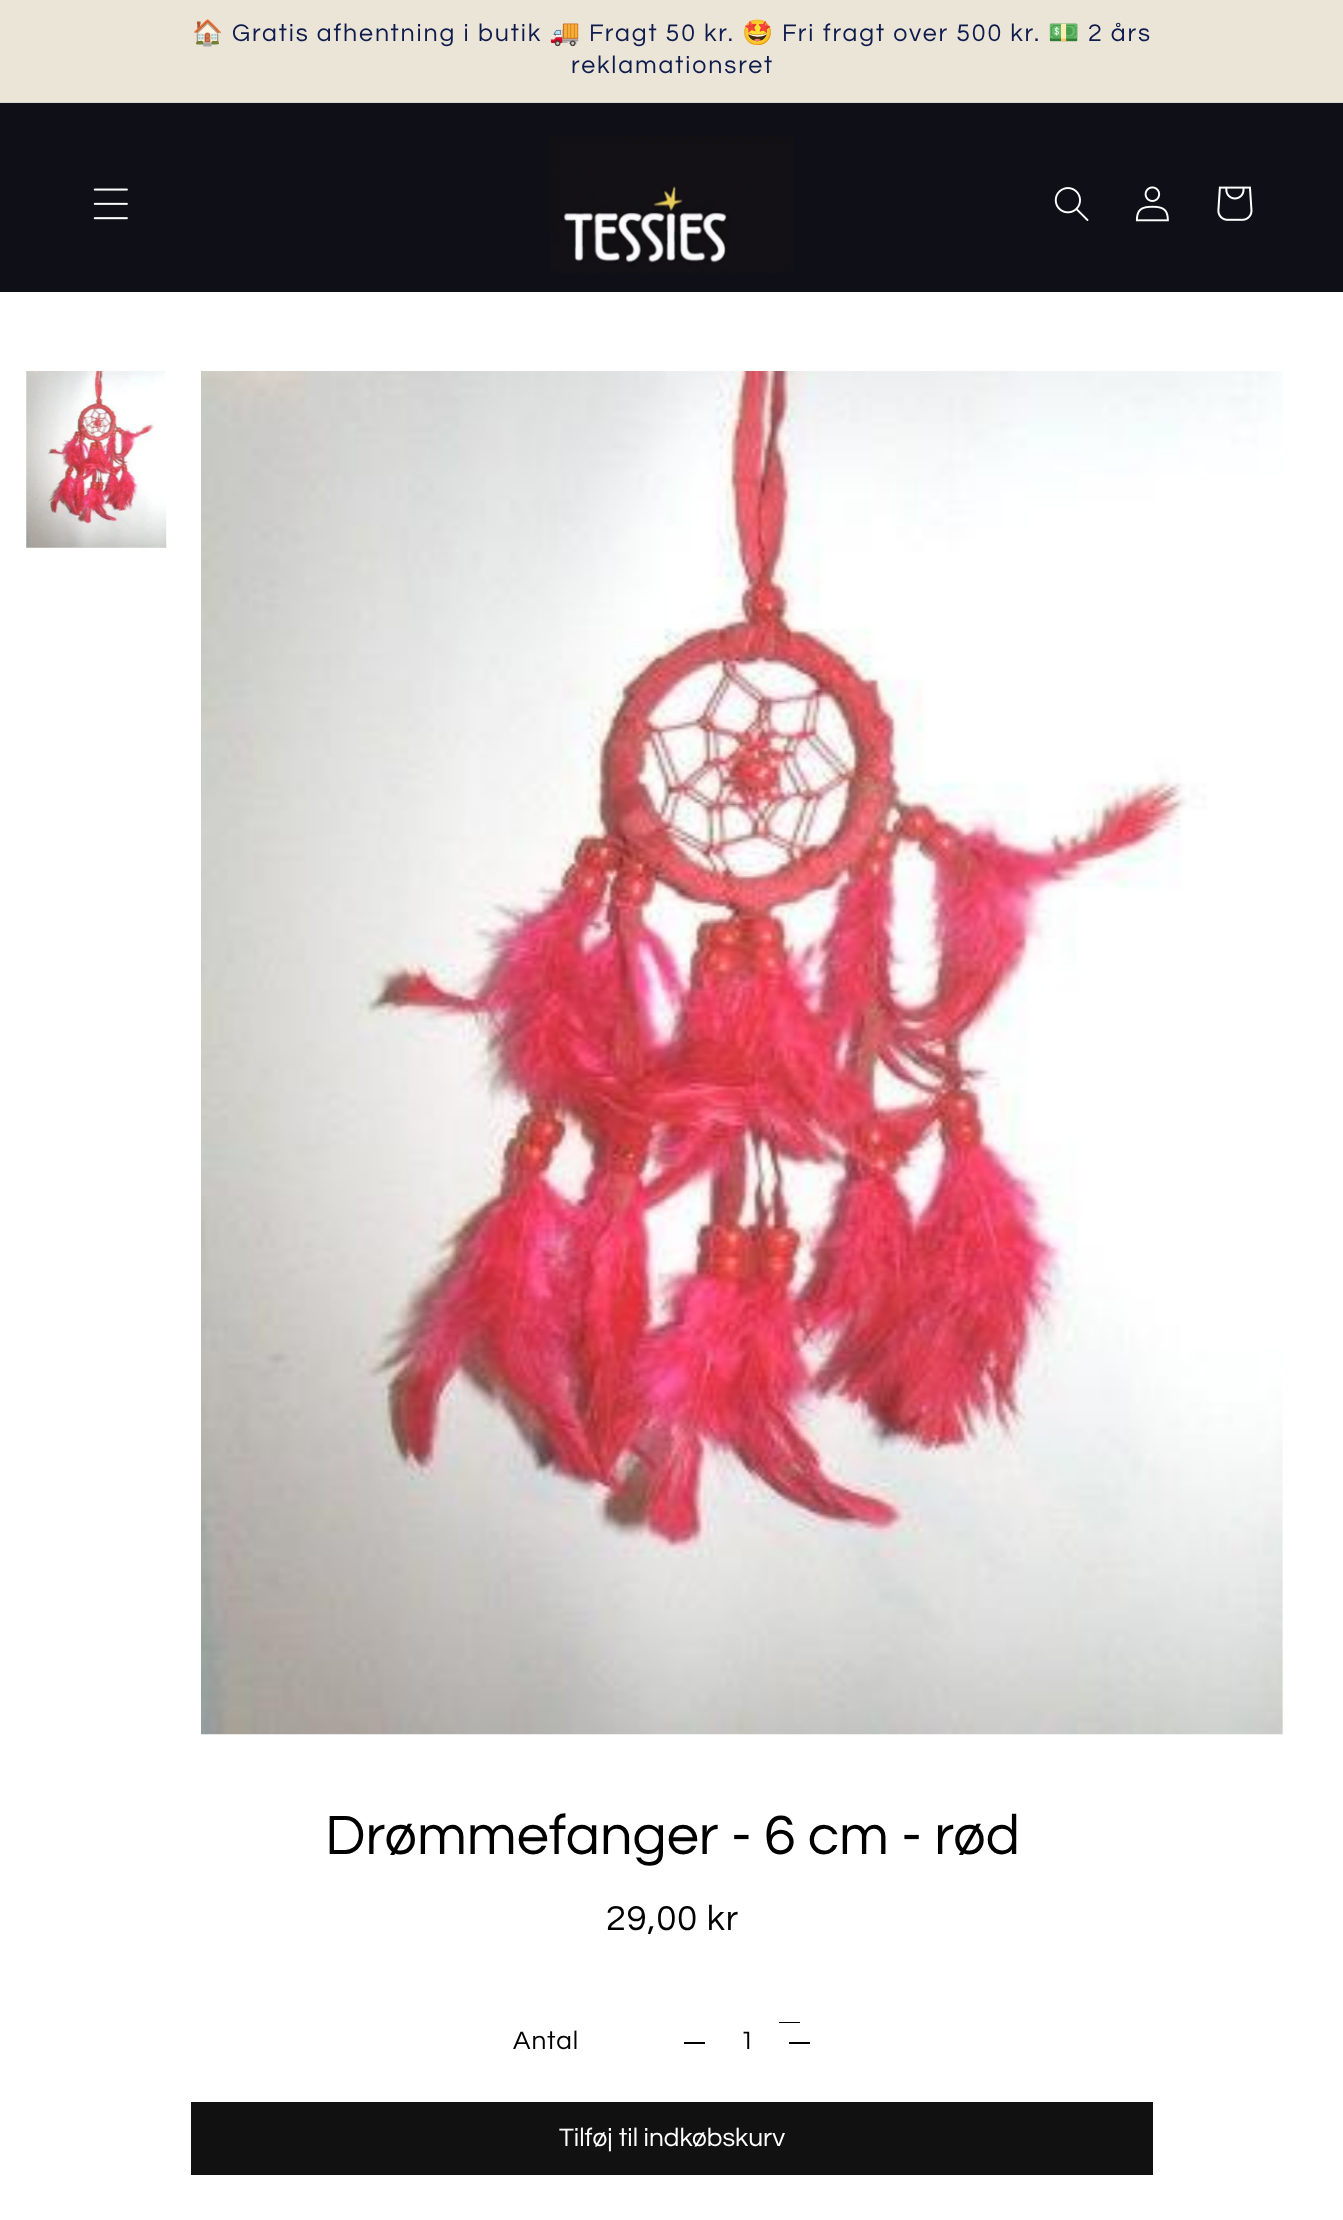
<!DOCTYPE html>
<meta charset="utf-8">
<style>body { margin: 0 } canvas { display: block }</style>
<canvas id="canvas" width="1343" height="2220"></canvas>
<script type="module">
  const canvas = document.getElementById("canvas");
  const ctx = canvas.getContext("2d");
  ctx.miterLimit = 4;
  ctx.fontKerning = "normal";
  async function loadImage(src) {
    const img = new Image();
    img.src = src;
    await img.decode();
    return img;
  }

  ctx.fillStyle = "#ebe5d8";
  ctx.fillRect(0, 0, 1343, 2220);
  ctx.fillStyle = "#d9d5cd";
  ctx.fillRect(0, 102, 1343, 1);
  ctx.letterSpacing = "1.85px";
  ctx.font = "25px Noto Color Emoji";
  ctx.fillStyle = "#0e1b4d";
  ctx.fillText("🏠", 192, 41);
  ctx.font = "25px Questrial";
  ctx.fillText("Gratis afhentning i butik", 232, 41);
  ctx.font = "25px Noto Color Emoji";
  ctx.fillText("🚚", 549, 41);
  ctx.font = "25px Questrial";
  ctx.fillText("Fragt 50 kr.", 589, 41);
  ctx.font = "25px Noto Color Emoji";
  ctx.fillText("🤩", 742, 41);
  ctx.font = "25px Questrial";
  ctx.fillText("Fri fragt over 500 kr.", 782, 41);
  ctx.font = "25px Noto Color Emoji";
  ctx.fillText("💵", 1048, 41);
  ctx.font = "25px Questrial";
  ctx.fillText("2 års", 1088, 41);
  ctx.fillText("reklamationsret", 571, 73);
  ctx.fillStyle = "#0e0f17";
  ctx.fillRect(0, 104, 1343, 188);
  ctx.fillStyle = "#0e101b";
  ctx.fillRect(0, 103, 1343, 1);
  ctx.drawImage(await loadImage("img1.png"), 93, 188, 35, 32);
  ctx.drawImage(await loadImage("img2.png"), 550, 135, 244, 138);
  ctx.drawImage(await loadImage("img3.png"), 1054, 187, 35, 34);
  ctx.drawImage(await loadImage("img4.png"), 1135, 186, 34, 36);
  ctx.drawImage(await loadImage("img5.png"), 1217, 186, 36, 35);
  ctx.fillStyle = "#ffffff";
  ctx.fillRect(0, 292, 1343, 1928);
  ctx.drawImage(await loadImage("img6.png"), 26, 371, 141, 177);
  ctx.drawImage(await loadImage("img7.png"), 201, 371, 1082, 1364);
  ctx.letterSpacing = "0px";
  ctx.font = "57.5px Questrial";
  ctx.fillStyle = "#000000";
  ctx.fillText("Drømmefanger - 6 cm - rød", 325, 1854);
  ctx.letterSpacing = "1px";
  ctx.font = "36px Questrial";
  ctx.fillText("29,00 kr", 606, 1930);
  ctx.font = "26.25px Questrial";
  ctx.fillText("Antal", 513, 2049);
  ctx.fillRect(684, 2042, 21, 2);
  ctx.letterSpacing = "0px";
  ctx.fillText("1", 740, 2049);
  ctx.fillRect(779, 2022, 21, 1);
  ctx.fillRect(789, 2042, 21, 2);
  ctx.fillStyle = "#111111";
  ctx.fillRect(191, 2102, 962, 73);
  ctx.fillStyle = "#ffffff";
  ctx.fillText("Tilføj til indkøbskurv", 559, 2146);
</script>
